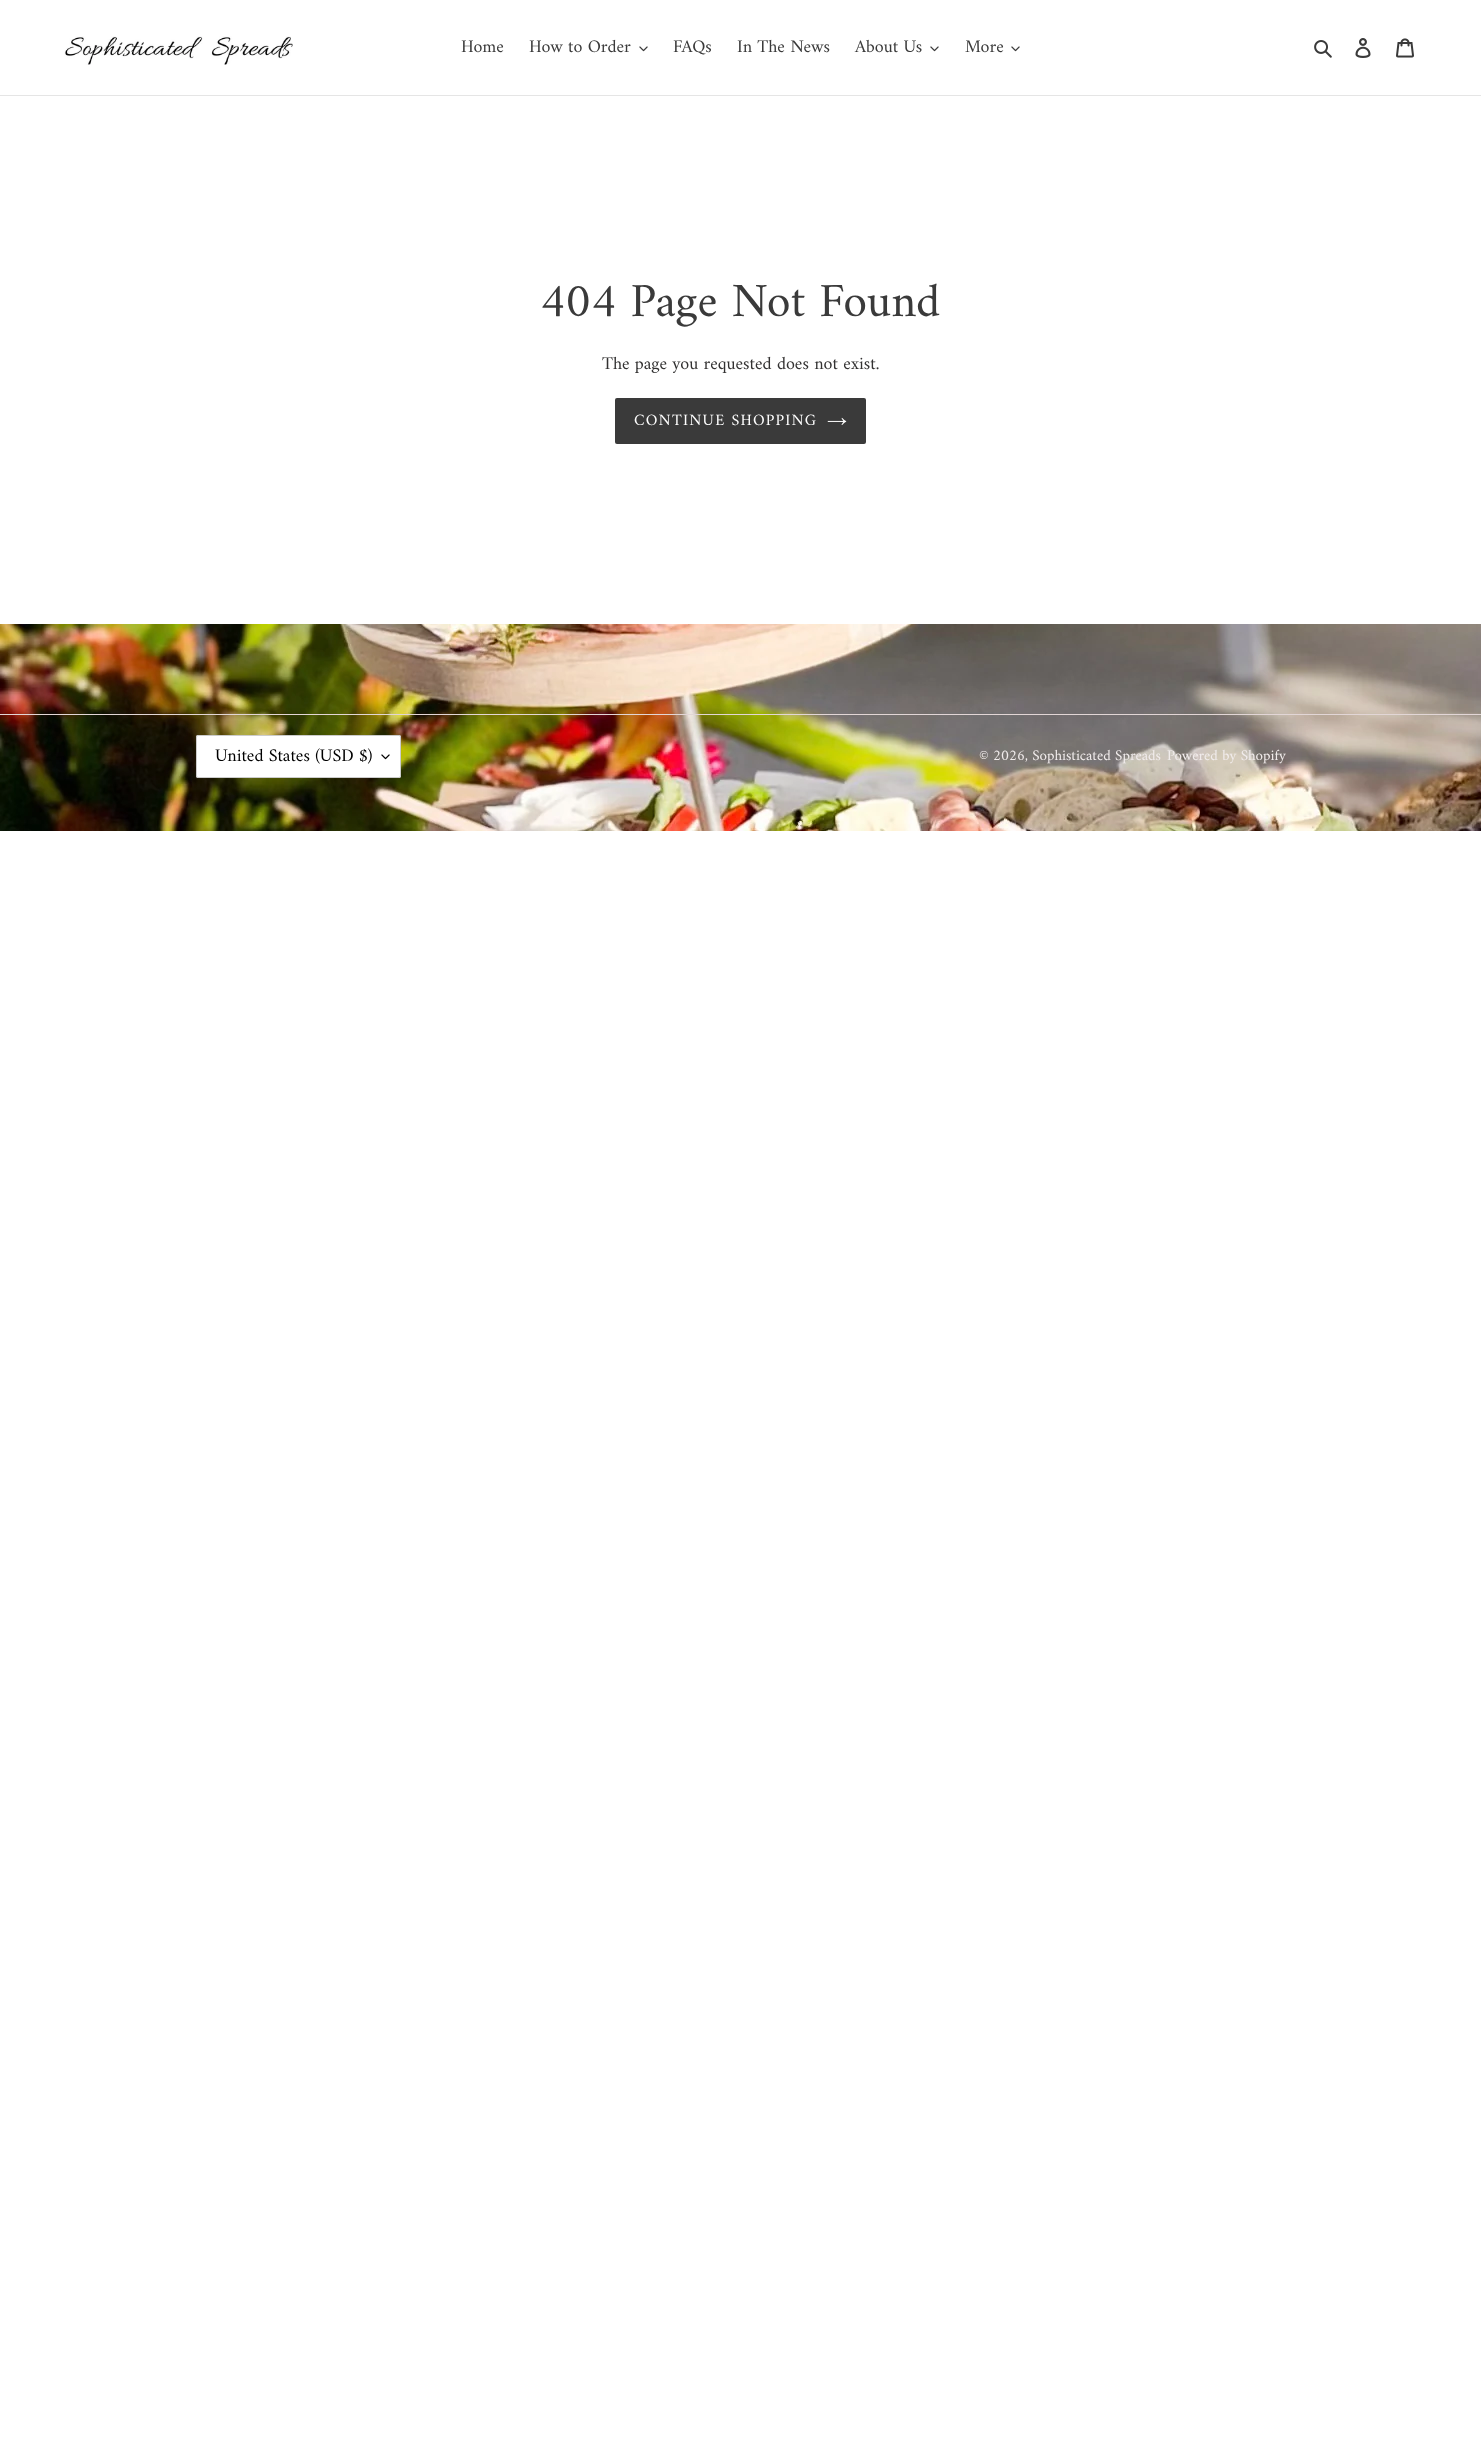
<!DOCTYPE html>
<meta charset="utf-8">
<style>body { margin: 0 } canvas { display: block }</style>
<canvas id="canvas" width="1481" height="2449"></canvas>
<script type="module">
  const canvas = document.getElementById("canvas");
  const ctx = canvas.getContext("2d");
  ctx.miterLimit = 4;
  ctx.fontKerning = "normal";
  async function loadImage(src) {
    const img = new Image();
    img.src = src;
    await img.decode();
    return img;
  }

  ctx.fillStyle = "#ffffff";
  ctx.fillRect(0, 0, 1481, 2449);
  ctx.fillStyle = "#e5e5e5";
  ctx.fillRect(0, 95, 1481, 1);
  ctx.drawImage(await loadImage("img1.png"), 64, 36, 229, 29);
  ctx.font = "18px Amiri";
  ctx.fillStyle = "#3a3a3a";
  ctx.fillText("Home", 461, 52);
  ctx.fillText("How to Order", 529, 52);
  ctx.drawImage(await loadImage("img2.png"), 639, 46, 9, 6);
  ctx.fillText("FAQs", 673, 52);
  ctx.fillText("In The News", 737, 52);
  ctx.fillText("About Us", 855, 52);
  ctx.drawImage(await loadImage("img2.png"), 930, 46, 9, 6);
  ctx.fillText("More", 965, 52);
  ctx.drawImage(await loadImage("img2.png"), 1011, 46, 9, 6);
  ctx.drawImage(await loadImage("img3.png"), 1314, 40, 18, 18);
  ctx.drawImage(await loadImage("img4.png"), 1355, 38, 16, 20);
  ctx.drawImage(await loadImage("img5.png"), 1396, 38, 18, 20);
  ctx.font = "48px Amiri";
  ctx.fillText("404 Page Not Found", 540, 316);
  ctx.font = "18px Amiri";
  ctx.fillStyle = "#333232";
  ctx.fillText("The page you requested does not exist.", 602, 369);
  ctx.fillStyle = "#3a3a3a";
  ctx.beginPath();
  ctx.roundRect(615, 398, 251, 46, 2);
  ctx.fill();
  ctx.letterSpacing = "1.25px";
  ctx.font = "16px Amiri";
  ctx.fillStyle = "#ffffff";
  ctx.fillText("CONTINUE SHOPPING", 634, 425);
  ctx.drawImage(await loadImage("img6.png"), 827, 417, 20, 8);
  ctx.drawImage(await loadImage("img7.png"), 0, 624, 1481, 207);
  ctx.fillStyle = "#e2d6d6";
  ctx.fillRect(0, 714, 1481, 1);
  ctx.fillStyle = "#ffffff";
  ctx.beginPath();
  ctx.roundRect(196, 735, 205, 43, 2);
  ctx.fill();
  ctx.drawImage(await loadImage("img8.png"), 381, 754, 9, 6);
  ctx.beginPath();
  ctx.roundRect(196.5, 735.5, 204, 42, 1.5);
  ctx.strokeStyle = "#cccccc";
  ctx.stroke();
  ctx.letterSpacing = "0px";
  ctx.font = "18px Amiri";
  ctx.fillStyle = "#000000";
  ctx.fillText("United States (USD $)", 215, 761);
  ctx.font = "15px Amiri";
  ctx.fillStyle = "#f1ecec";
  ctx.fillText("© 2026, Sophisticated Spreads", 979, 760);
  ctx.fillText("Powered by Shopify", 1167, 760);
</script>
